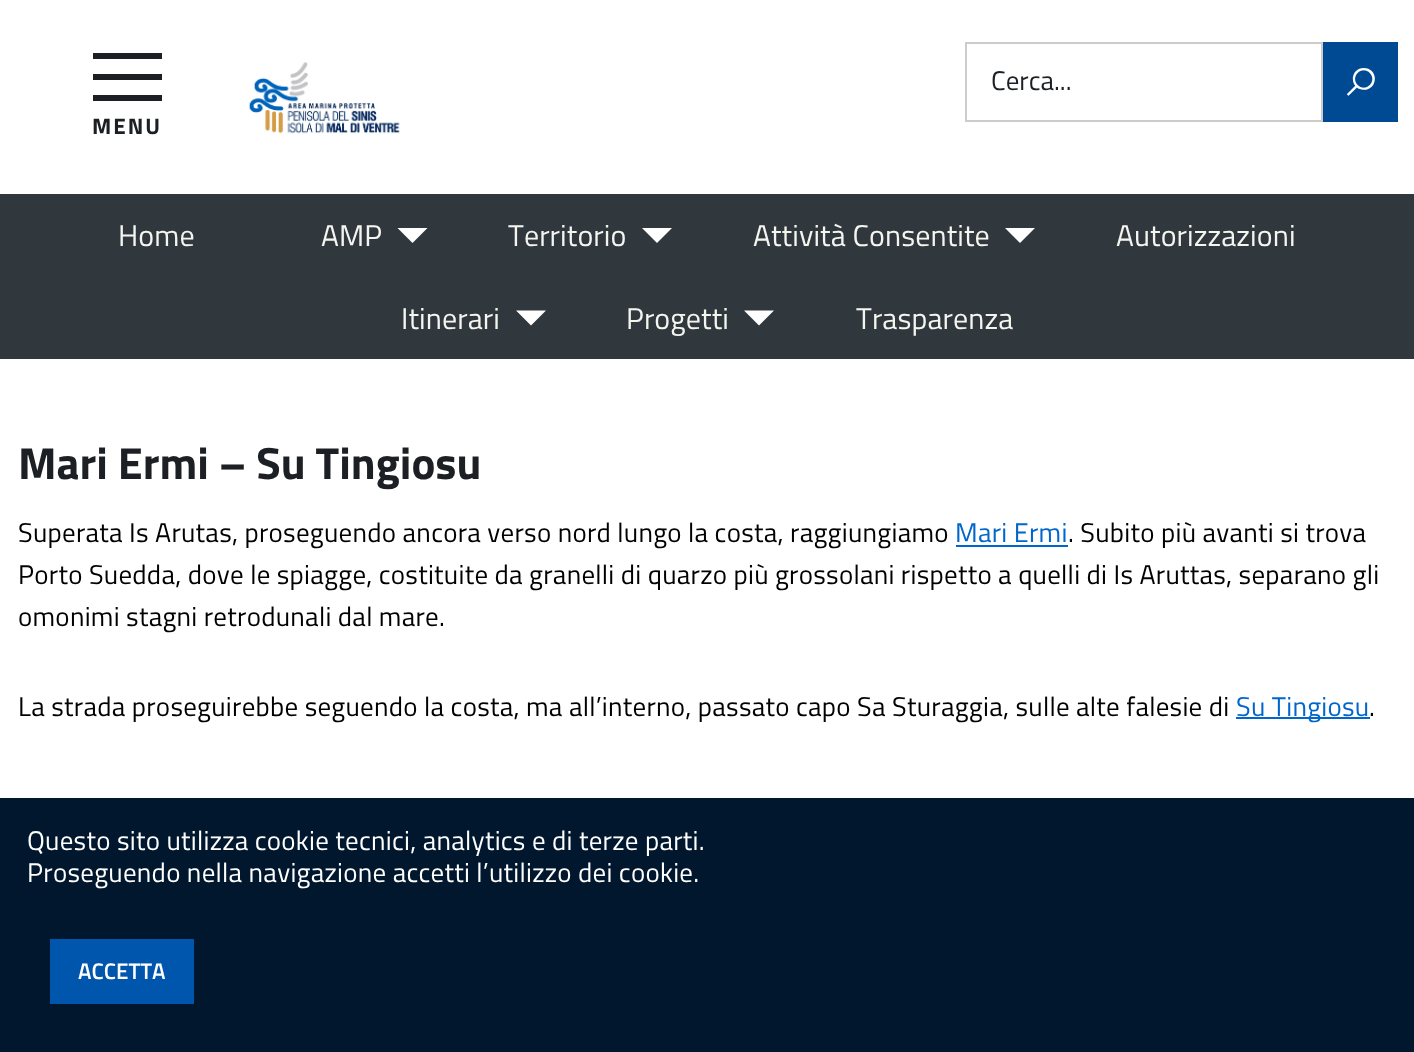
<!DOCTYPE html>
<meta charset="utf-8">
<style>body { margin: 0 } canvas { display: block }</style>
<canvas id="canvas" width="1414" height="1052"></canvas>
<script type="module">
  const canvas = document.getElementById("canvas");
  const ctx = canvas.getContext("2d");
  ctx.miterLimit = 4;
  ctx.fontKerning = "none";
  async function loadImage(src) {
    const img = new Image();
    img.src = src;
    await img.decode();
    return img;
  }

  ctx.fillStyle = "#ffffff";
  ctx.fillRect(0, 0, 1414, 1052);
  ctx.drawImage(await loadImage("img1.png"), 248, 62, 152, 72);
  ctx.strokeStyle = "#cccccc";
  ctx.lineWidth = 2;
  ctx.strokeRect(966, 43, 356, 78);
  ctx.fillStyle = "#004a94";
  ctx.fillRect(1323, 42, 75, 80);
  ctx.font = "bold 27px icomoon";
  ctx.fillStyle = "#ffffff";
  ctx.fillText("🔍", 1347, 94);
  ctx.font = "27px Titillium Web";
  ctx.fillStyle = "#1c2024";
  ctx.fillText("Cerca...", 991, 90);
  ctx.fillRect(93, 74, 69, 6);
  ctx.fillRect(93, 53, 69, 6);
  ctx.fillRect(93, 95, 69, 6);
  ctx.letterSpacing = "2px";
  ctx.font = "bold 22.5px Titillium Web";
  ctx.fillText("MENU", 92, 134);
  ctx.fillStyle = "#30373d";
  ctx.fillRect(0, 194, 1414, 165);
  ctx.letterSpacing = "0.1px";
  ctx.font = "30px Titillium Web";
  ctx.fillStyle = "#f5f5f0";
  ctx.fillText("Home", 118, 246);
  ctx.fillText("AMP", 321, 246);
  ctx.fillStyle = "#ffffff";
  ctx.beginPath();
  ctx.moveTo(397.5, 228);
  ctx.lineTo(427.5, 228);
  ctx.lineTo(412.5, 243);
  ctx.closePath();
  ctx.fill();
  ctx.fillStyle = "#f5f5f0";
  ctx.fillText("Territorio", 508, 246);
  ctx.fillStyle = "#ffffff";
  ctx.beginPath();
  ctx.moveTo(642, 228);
  ctx.lineTo(672, 228);
  ctx.lineTo(657, 243);
  ctx.closePath();
  ctx.fill();
  ctx.fillStyle = "#f5f5f0";
  ctx.fillText("Attività Consentite", 753, 246);
  ctx.fillStyle = "#ffffff";
  ctx.beginPath();
  ctx.moveTo(1005, 228);
  ctx.lineTo(1035, 228);
  ctx.lineTo(1020, 243);
  ctx.closePath();
  ctx.fill();
  ctx.fillStyle = "#f5f5f0";
  ctx.fillText("Autorizzazioni", 1116, 246);
  ctx.fillText("Itinerari", 401, 329);
  ctx.fillStyle = "#ffffff";
  ctx.beginPath();
  ctx.moveTo(516, 310.5);
  ctx.lineTo(546, 310.5);
  ctx.lineTo(531, 325.5);
  ctx.closePath();
  ctx.fill();
  ctx.fillStyle = "#f5f5f0";
  ctx.fillText("Progetti", 626, 329);
  ctx.fillStyle = "#ffffff";
  ctx.beginPath();
  ctx.moveTo(744, 310.5);
  ctx.lineTo(774, 310.5);
  ctx.lineTo(759, 325.5);
  ctx.closePath();
  ctx.fill();
  ctx.fillStyle = "#f5f5f0";
  ctx.fillText("Trasparenza", 856, 329);
  ctx.letterSpacing = "0px";
  ctx.font = "bold 45px Titillium Web";
  ctx.fillStyle = "#1c2024";
  ctx.fillText("Mari Ermi – Su Tingiosu", 18, 479);
  ctx.letterSpacing = "0.27px";
  ctx.font = "27px Titillium Web";
  ctx.fillStyle = "#000000";
  ctx.fillText("Superata Is Arutas, proseguendo ancora verso nord lungo la costa, raggiungiamo", 18, 542);
  ctx.fillStyle = "#0066cc";
  ctx.fillText("Mari Ermi", 955, 542);
  ctx.fillRect(956, 545, 112, 2);
  ctx.fillStyle = "#000000";
  ctx.fillText(". Subito più avanti si trova", 1068, 542);
  ctx.fillText("Porto Suedda, dove le spiagge, costituite da granelli di quarzo più grossolani rispetto a quelli di Is Aruttas, separano gli", 18, 584);
  ctx.fillText("omonimi stagni retrodunali dal mare.", 18, 626);
  ctx.fillText("La strada proseguirebbe seguendo la costa, ma all’interno, passato capo Sa Sturaggia, sulle alte falesie di", 18, 716);
  ctx.fillStyle = "#0066cc";
  ctx.fillRect(1236, 717, 134, 2);
  ctx.fillText("Su Tingiosu", 1236, 716);
  ctx.fillStyle = "#000000";
  ctx.fillText(".", 1369, 716);
  ctx.fillStyle = "#00172e";
  ctx.fillRect(0, 798, 1414, 254);
  ctx.fillStyle = "#ffffff";
  ctx.fillText("Questo sito utilizza cookie tecnici, analytics e di terze parti.", 27, 850);
  ctx.fillText("Proseguendo nella navigazione accetti l’utilizzo dei cookie.", 27, 882);
  ctx.fillStyle = "#0056ac";
  ctx.fillRect(50, 939, 144, 65);
  ctx.letterSpacing = "0px";
  ctx.font = "600 22.5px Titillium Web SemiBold";
  ctx.fillStyle = "#ffffff";
  ctx.fillText("ACCETTA", 78, 979);
</script>
